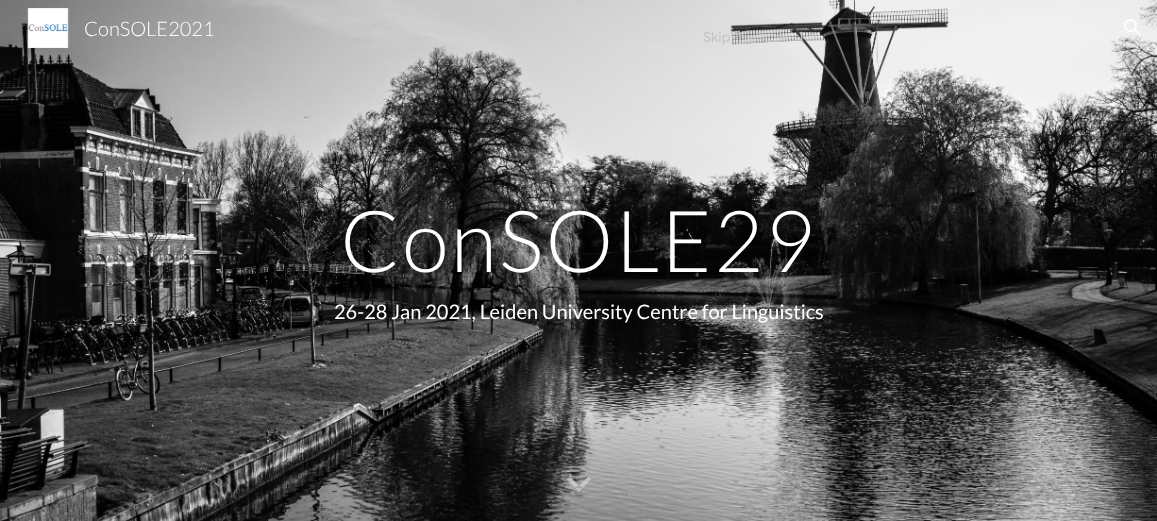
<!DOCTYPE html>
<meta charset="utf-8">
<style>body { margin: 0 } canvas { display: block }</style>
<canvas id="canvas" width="1157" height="521"></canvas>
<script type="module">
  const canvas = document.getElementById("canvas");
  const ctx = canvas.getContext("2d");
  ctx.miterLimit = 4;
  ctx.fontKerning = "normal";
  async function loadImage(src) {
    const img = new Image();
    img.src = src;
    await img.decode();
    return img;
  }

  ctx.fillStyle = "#ffffff";
  ctx.fillRect(0, 0, 1157, 521);
  ctx.drawImage(await loadImage("img3.png"), 0, 0, 1157, 521);
  ctx.drawImage(await loadImage("img1.png"), 27, 8, 42, 40);
  ctx.font = "300 20px Lato";
  ctx.fillText("ConSOLE2021", 84, 36);
  ctx.drawImage(await loadImage("img2.png"), 1124, 19, 17, 17);
  ctx.letterSpacing = "2px";
  ctx.font = "300 85.5px Lato";
  ctx.fillText("ConSOLE29", 340, 272);
  ctx.letterSpacing = "0px";
  ctx.font = "20px Lato";
  ctx.fillText("26-28 Jan 2021, Leiden University Centre for Linguistics", 334, 319);
  ctx.fillStyle = "rgba(255, 255, 255, 0.4)";
  ctx.beginPath();
  ctx.moveTo(570, 476.5);
  ctx.lineTo(579, 486);
  ctx.lineTo(588, 476.5);
  ctx.lineTo(591, 479.5);
  ctx.lineTo(579, 491.5);
  ctx.lineTo(567, 479.5);
  ctx.closePath();
  ctx.fill();
  ctx.font = "500 14px Google Sans";
  ctx.fillStyle = "#c7c7c7";
  ctx.fillText("Skip", 703, 42);
  ctx.fillText("i", 800, 42);
</script>
